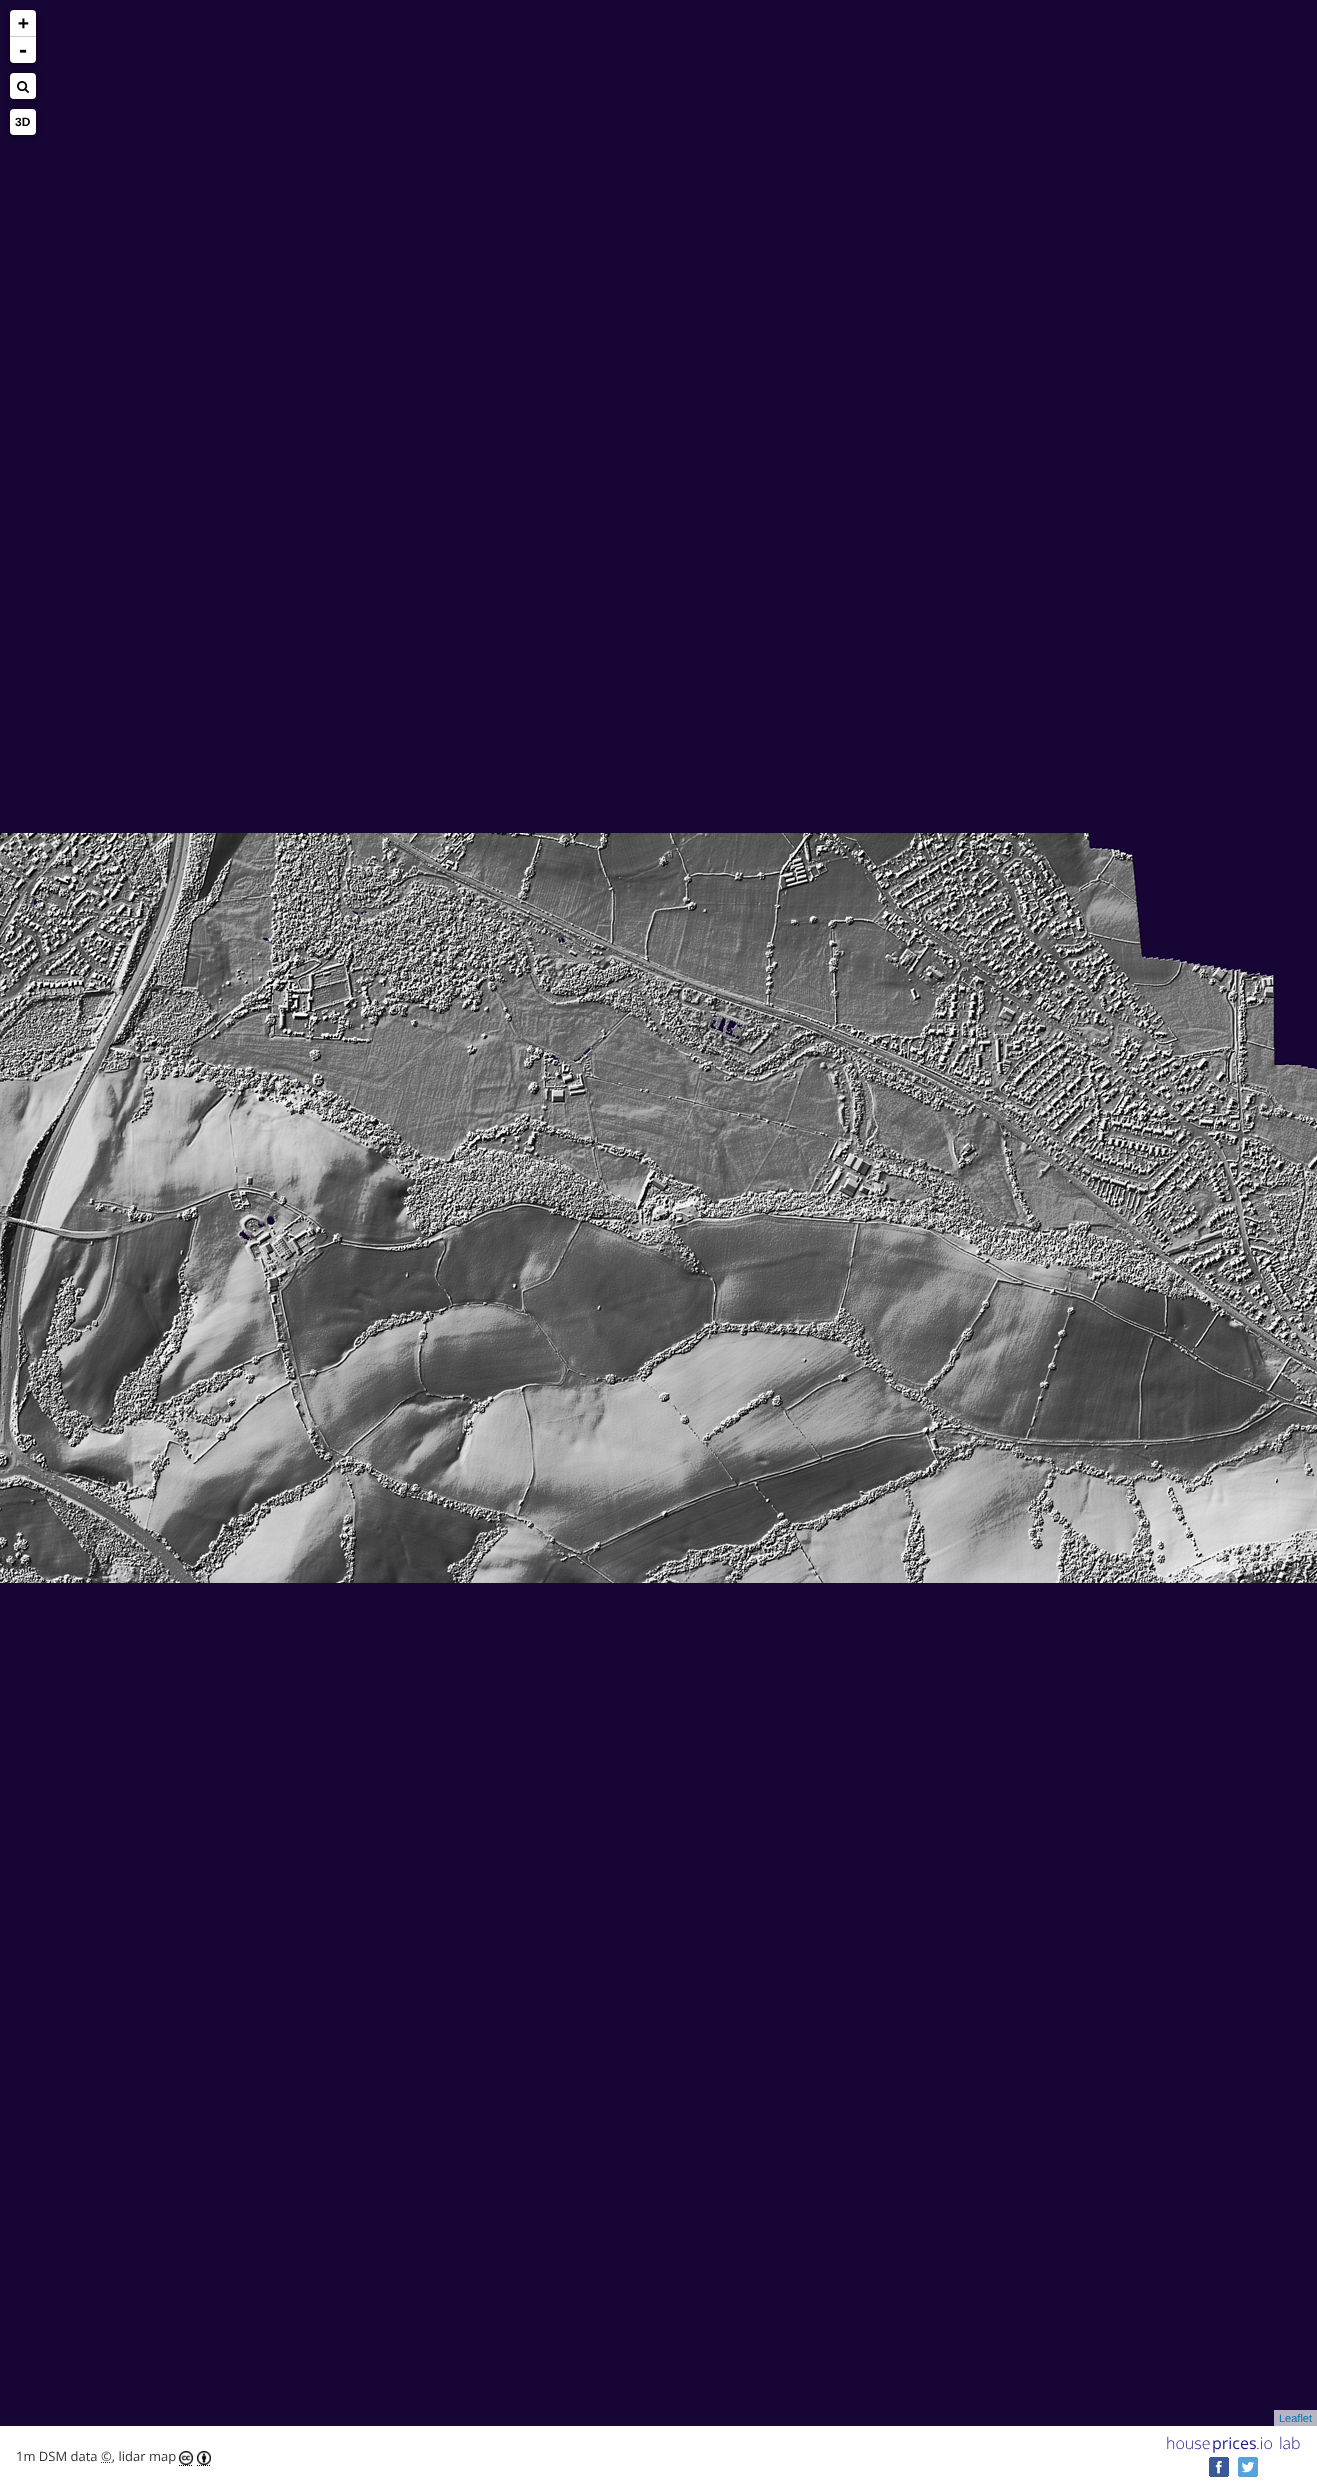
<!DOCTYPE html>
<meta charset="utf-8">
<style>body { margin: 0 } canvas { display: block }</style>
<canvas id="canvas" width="1317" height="2486"></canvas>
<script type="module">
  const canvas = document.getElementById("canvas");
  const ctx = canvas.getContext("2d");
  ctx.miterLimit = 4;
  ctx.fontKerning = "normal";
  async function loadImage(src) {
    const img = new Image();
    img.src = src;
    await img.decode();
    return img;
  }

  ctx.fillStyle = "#ffffff";
  ctx.fillRect(0, 0, 1317, 2486);
  ctx.fillStyle = "#170535";
  ctx.fillRect(0, 0, 1317, 2426);
  ctx.fillStyle = "rgba(0, 0, 0, 0.65)";
  ctx.filter = "blur(2.5px)";
  ctx.beginPath();
  ctx.roundRect(10, 11, 26, 53, 4);
  ctx.fill();
  ctx.filter = "none";
  ctx.fillStyle = "#ffffff";
  ctx.beginPath();
  ctx.roundRect(10, 10, 26, 27, [4, 4, 0, 0]);
  ctx.fill();
  ctx.fillStyle = "#cccccc";
  ctx.fillRect(10, 36, 26, 1);
  ctx.font = "bold 18px DejaVu Sans Mono";
  ctx.fillStyle = "#000000";
  ctx.fillText("+", 18, 29);
  ctx.fillStyle = "#ffffff";
  ctx.beginPath();
  ctx.roundRect(10, 37, 26, 26, [0, 0, 4, 4]);
  ctx.fill();
  ctx.font = "bold 20px DejaVu Sans Mono";
  ctx.fillStyle = "#000000";
  ctx.fillText("-", 17, 57);
  ctx.fillStyle = "rgba(0, 0, 0, 0.65)";
  ctx.filter = "blur(2.5px)";
  ctx.beginPath();
  ctx.roundRect(10, 74, 26, 26, 4);
  ctx.fill();
  ctx.filter = "none";
  ctx.fillStyle = "#ffffff";
  ctx.beginPath();
  ctx.roundRect(10, 73, 26, 26, 4);
  ctx.fill();
  ctx.drawImage(await loadImage("img1.png"), 17, 81, 12, 12);
  ctx.fillStyle = "rgba(0, 0, 0, 0.65)";
  ctx.filter = "blur(2.5px)";
  ctx.beginPath();
  ctx.roundRect(10, 110, 26, 26, 4);
  ctx.fill();
  ctx.filter = "none";
  ctx.fillStyle = "#ffffff";
  ctx.beginPath();
  ctx.roundRect(10, 109, 26, 26, 4);
  ctx.fill();
  ctx.font = "bold 12px Liberation Sans";
  ctx.fillStyle = "#000000";
  ctx.fillText("3D", 15, 126);
  ctx.fillStyle = "#b9b4c2";
  ctx.fillRect(1274, 2410, 43, 16);
  ctx.font = "11px Liberation Sans";
  ctx.fillStyle = "#0078a8";
  ctx.fillText("Leaflet", 1279, 2422);
  ctx.drawImage(await loadImage("img2.png"), 0, 833, 214, 250);
  ctx.drawImage(await loadImage("img3.png"), 214, 833, 250, 250);
  ctx.drawImage(await loadImage("img4.png"), 464, 833, 250, 250);
  ctx.drawImage(await loadImage("img5.png"), 714, 833, 250, 250);
  ctx.drawImage(await loadImage("img6.png"), 964, 833, 250, 250);
  ctx.drawImage(await loadImage("img7.png"), 1214, 966, 103, 117);
  ctx.drawImage(await loadImage("img8.png"), 0, 1083, 214, 250);
  ctx.drawImage(await loadImage("img9.png"), 214, 1083, 250, 250);
  ctx.drawImage(await loadImage("img10.png"), 464, 1083, 250, 250);
  ctx.drawImage(await loadImage("img11.png"), 714, 1083, 250, 250);
  ctx.drawImage(await loadImage("img12.png"), 964, 1083, 250, 250);
  ctx.drawImage(await loadImage("img13.png"), 1214, 1083, 103, 250);
  ctx.drawImage(await loadImage("img14.png"), 0, 1333, 214, 250);
  ctx.drawImage(await loadImage("img15.png"), 214, 1333, 250, 250);
  ctx.drawImage(await loadImage("img16.png"), 464, 1333, 250, 250);
  ctx.drawImage(await loadImage("img17.png"), 714, 1333, 250, 250);
  ctx.drawImage(await loadImage("img18.png"), 964, 1333, 250, 250);
  ctx.drawImage(await loadImage("img19.png"), 1214, 1333, 103, 250);
  ctx.font = "300 16px Open Sans";
  ctx.fillStyle = "#22198e";
  ctx.fillText("house", 1166, 2449);
  ctx.font = "16px Open Sans";
  ctx.fillText("prices", 1212, 2449);
  ctx.font = "300 16px Open Sans";
  ctx.fillText(".io", 1256, 2449);
  ctx.fillText("lab", 1279, 2449);
  ctx.drawImage(await loadImage("img20.png"), 1209, 2457, 20, 20);
  ctx.drawImage(await loadImage("img21.png"), 1238, 2457, 20, 20);
  ctx.font = "13px Open Sans";
  ctx.fillStyle = "#333333";
  ctx.fillText("1m DSM data ©, lidar map", 16, 2461);
  ctx.beginPath();
  ctx.moveTo(101, 2462.5);
  ctx.lineTo(111.5, 2462.5);
  ctx.strokeStyle = "#333333";
  ctx.setLineDash([1, 1]);
  ctx.stroke();
  ctx.beginPath();
  ctx.moveTo(179, 2465.5);
  ctx.lineTo(193, 2465.5);
  ctx.strokeStyle = "#000000";
  ctx.stroke();
  ctx.beginPath();
  ctx.moveTo(197, 2465.5);
  ctx.lineTo(211, 2465.5);
  ctx.stroke();
  ctx.drawImage(await loadImage("img22.png"), 179, 2451, 14, 14);
  ctx.drawImage(await loadImage("img23.png"), 197, 2451, 14, 14);
</script>
